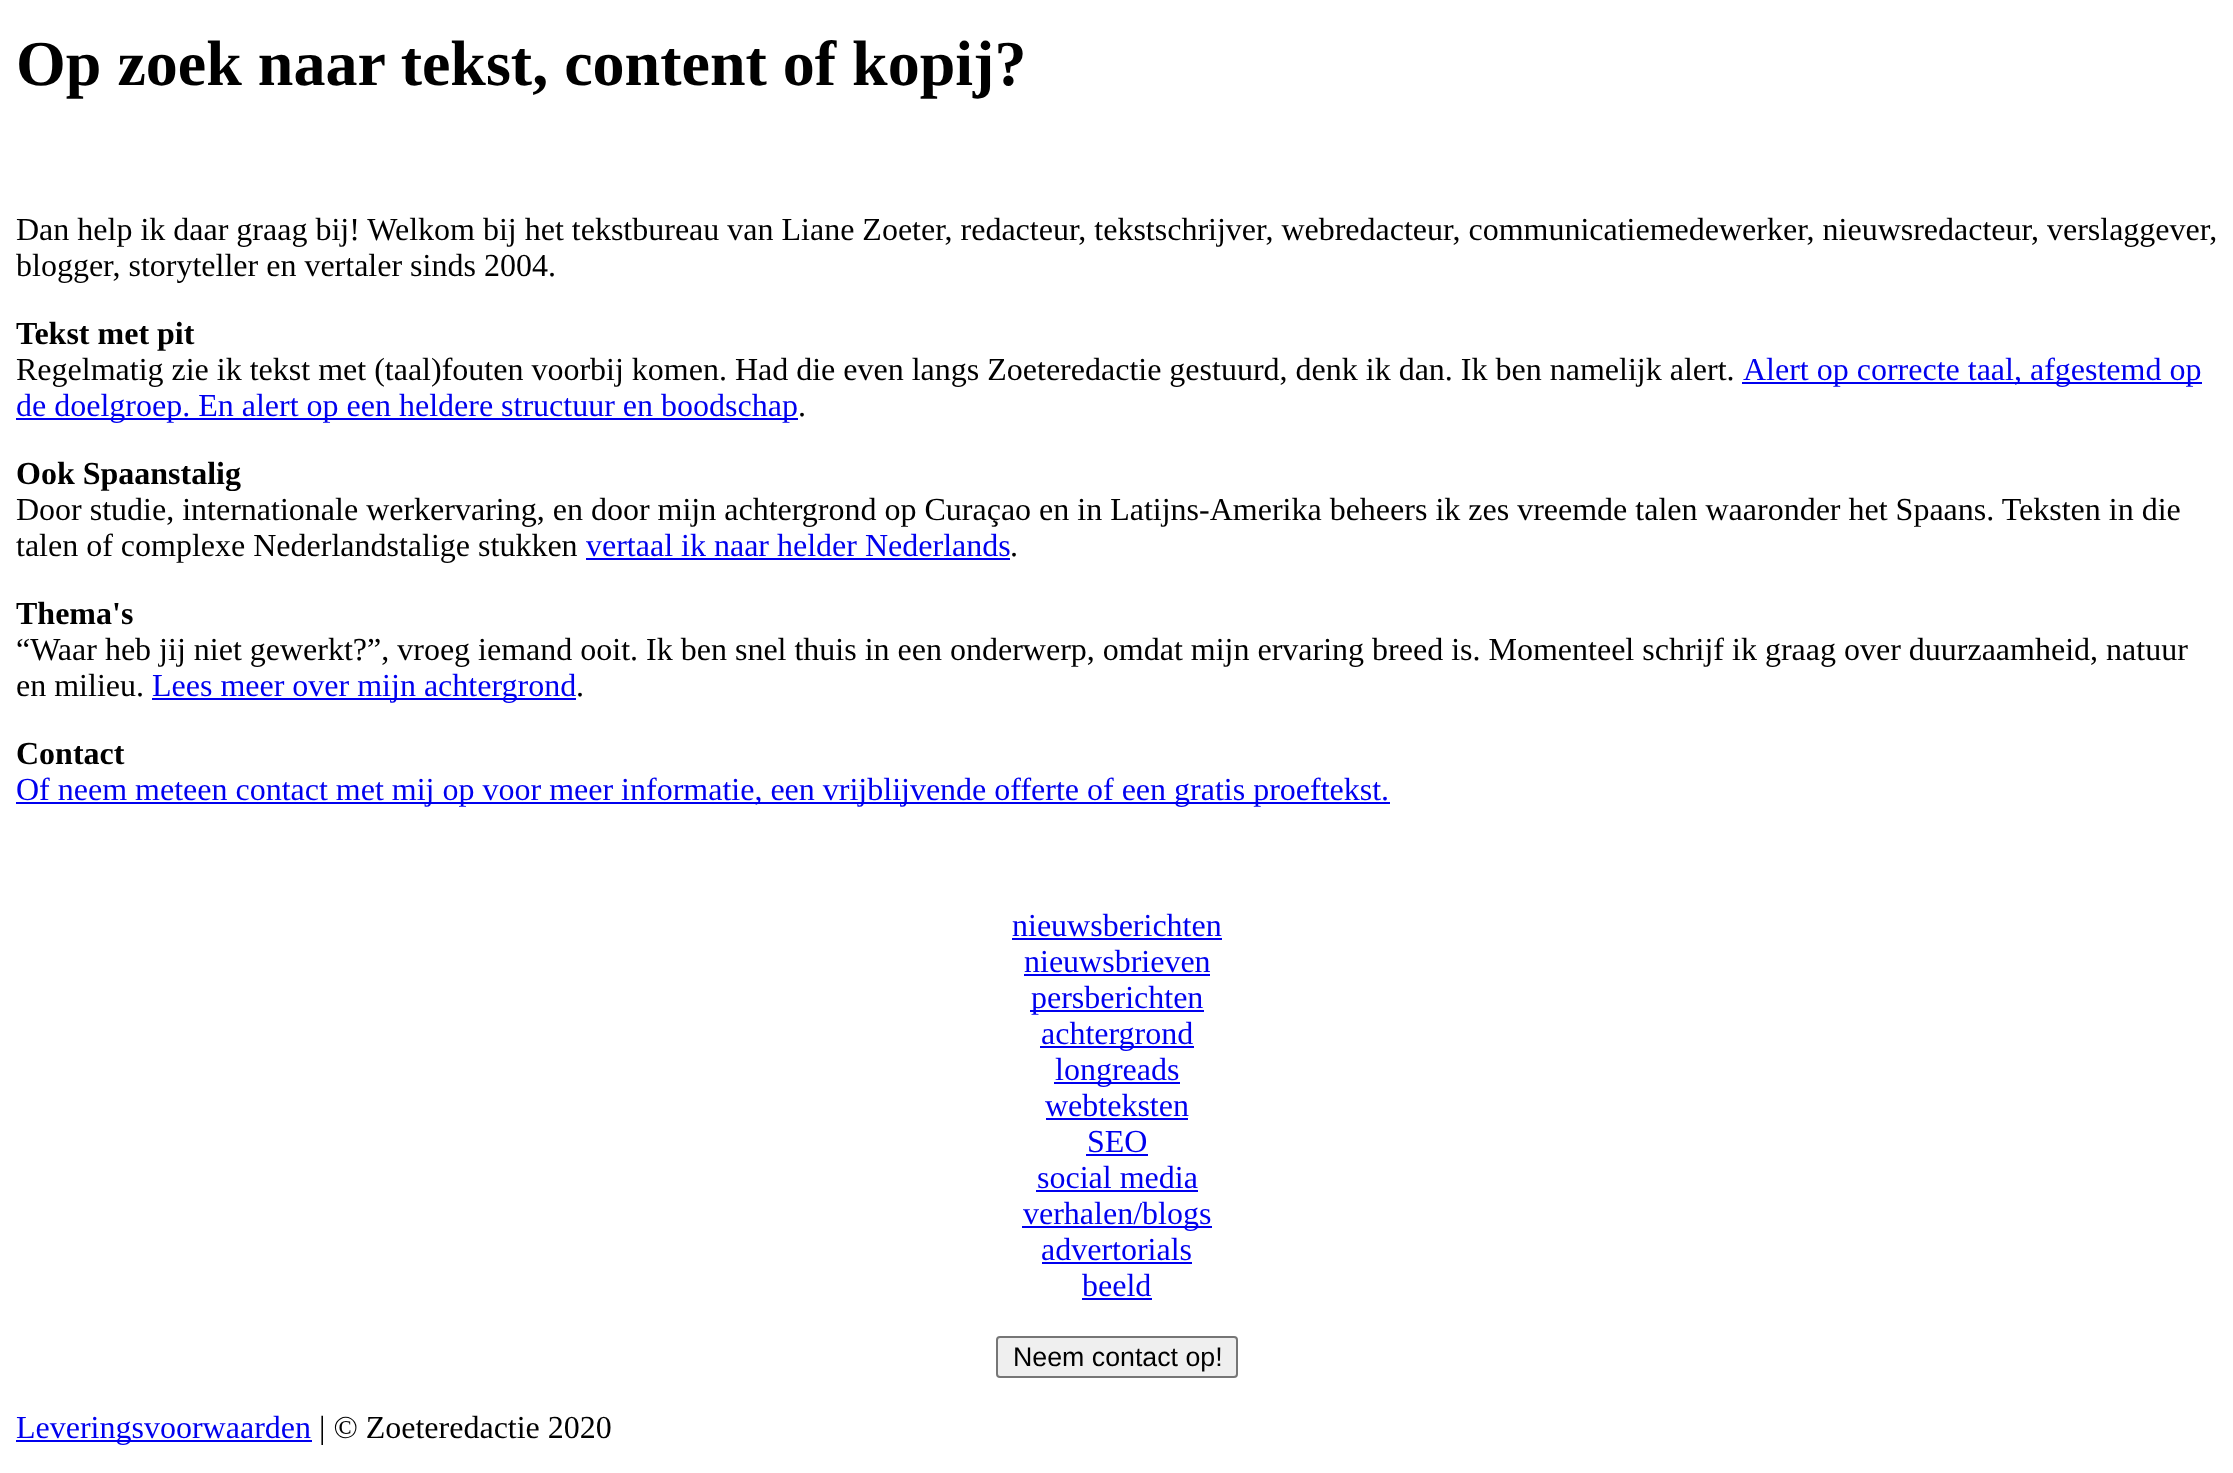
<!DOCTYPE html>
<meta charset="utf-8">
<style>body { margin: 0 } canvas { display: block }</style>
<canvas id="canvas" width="2233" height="1473"></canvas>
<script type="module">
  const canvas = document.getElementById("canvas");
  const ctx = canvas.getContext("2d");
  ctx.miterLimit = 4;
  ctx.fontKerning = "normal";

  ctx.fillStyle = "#ffffff";
  ctx.fillRect(0, 0, 2233, 1473);
  ctx.font = "bold 64px Liberation Serif";
  ctx.fillStyle = "#000000";
  ctx.fillText("Op zoek naar tekst, content of kopij?", 16, 85);
  ctx.font = "32px Liberation Serif";
  ctx.fillText("Dan help ik daar graag bij! Welkom bij het tekstbureau van Liane Zoeter, redacteur, tekstschrijver, webredacteur, communicatiemedewerker, nieuwsredacteur, verslaggever,", 16, 240);
  ctx.fillText("blogger, storyteller en vertaler sinds 2004.", 16, 276);
  ctx.font = "bold 32px Liberation Serif";
  ctx.fillText("Tekst met pit", 16, 344);
  ctx.font = "32px Liberation Serif";
  ctx.fillText("Regelmatig zie ik tekst met (taal)fouten voorbij komen. Had die even langs Zoeteredactie gestuurd, denk ik dan. Ik ben namelijk alert.", 16, 380);
  ctx.fillStyle = "#0000ee";
  ctx.fillRect(1742, 382, 460, 2);
  ctx.fillText("Alert op correcte taal, afgestemd op", 1743, 380);
  ctx.fillRect(16, 418, 782, 2);
  ctx.fillText("de doelgroep. En alert op een heldere structuur en boodschap", 16, 416);
  ctx.fillStyle = "#000000";
  ctx.fillText(".", 798, 416);
  ctx.font = "bold 32px Liberation Serif";
  ctx.fillText("Ook Spaanstalig", 16, 484);
  ctx.font = "32px Liberation Serif";
  ctx.fillText("Door studie, internationale werkervaring, en door mijn achtergrond op Curaçao en in Latijns-Amerika beheers ik zes vreemde talen waaronder het Spaans. Teksten in die", 16, 520);
  ctx.fillText("talen of complexe Nederlandstalige stukken", 16, 556);
  ctx.fillStyle = "#0000ee";
  ctx.fillText("vertaal ik naar helder Nederlands", 586, 556);
  ctx.fillRect(586, 558, 424, 2);
  ctx.fillStyle = "#000000";
  ctx.fillText(".", 1010, 556);
  ctx.font = "bold 32px Liberation Serif";
  ctx.fillText("Thema's", 16, 624);
  ctx.font = "32px Liberation Serif";
  ctx.fillText("“Waar heb jij niet gewerkt?”, vroeg iemand ooit. Ik ben snel thuis in een onderwerp, omdat mijn ervaring breed is. Momenteel schrijf ik graag over duurzaamheid, natuur", 16, 660);
  ctx.fillText("en milieu.", 16, 696);
  ctx.fillStyle = "#0000ee";
  ctx.fillRect(152, 698, 424, 2);
  ctx.fillText("Lees meer over mijn achtergrond", 152, 696);
  ctx.fillStyle = "#000000";
  ctx.fillText(".", 576, 696);
  ctx.font = "bold 32px Liberation Serif";
  ctx.fillText("Contact", 16, 764);
  ctx.fillStyle = "#0000ee";
  ctx.fillRect(16, 802, 1374, 2);
  ctx.font = "32px Liberation Serif";
  ctx.fillText("Of neem meteen contact met mij op voor meer informatie, een vrijblijvende offerte of een gratis proeftekst.", 16, 800);
  ctx.fillText("nieuwsberichten", 1012, 936);
  ctx.fillRect(1012, 938, 210, 2);
  ctx.fillText("nieuwsbrieven", 1024, 972);
  ctx.fillRect(1024, 974, 186, 2);
  ctx.fillRect(1030, 1010, 174, 2);
  ctx.fillText("persberichten", 1031, 1008);
  ctx.fillRect(1040, 1046, 154, 2);
  ctx.fillText("achtergrond", 1041, 1044);
  ctx.fillRect(1054, 1082, 126, 2);
  ctx.fillText("longreads", 1055, 1080);
  ctx.fillText("webteksten", 1045, 1116);
  ctx.fillRect(1046, 1118, 142, 2);
  ctx.fillText("SEO", 1087, 1152);
  ctx.fillRect(1086, 1154, 62, 2);
  ctx.fillText("social media", 1037, 1188);
  ctx.fillRect(1036, 1190, 162, 2);
  ctx.fillRect(1022, 1226, 190, 2);
  ctx.fillText("verhalen/blogs", 1023, 1224);
  ctx.fillText("advertorials", 1041, 1260);
  ctx.fillRect(1042, 1262, 150, 2);
  ctx.fillText("beeld", 1082, 1296);
  ctx.fillRect(1082, 1298, 70, 2);
  ctx.fillStyle = "#efefef";
  ctx.beginPath();
  ctx.roundRect(997, 1337, 240, 40, 3);
  ctx.fill();
  ctx.strokeStyle = "#767676";
  ctx.lineWidth = 2;
  ctx.stroke();
  ctx.font = "26.75px Liberation Sans";
  ctx.fillStyle = "#000000";
  ctx.fillText("Neem contact op!", 1013, 1366);
  ctx.fillStyle = "#0000ee";
  ctx.fillRect(16, 1440, 296, 2);
  ctx.font = "32px Liberation Serif";
  ctx.fillText("Leveringsvoorwaarden", 16, 1438);
  ctx.fillStyle = "#000000";
  ctx.fillText("| © Zoeteredactie 2020", 319, 1438);
</script>
